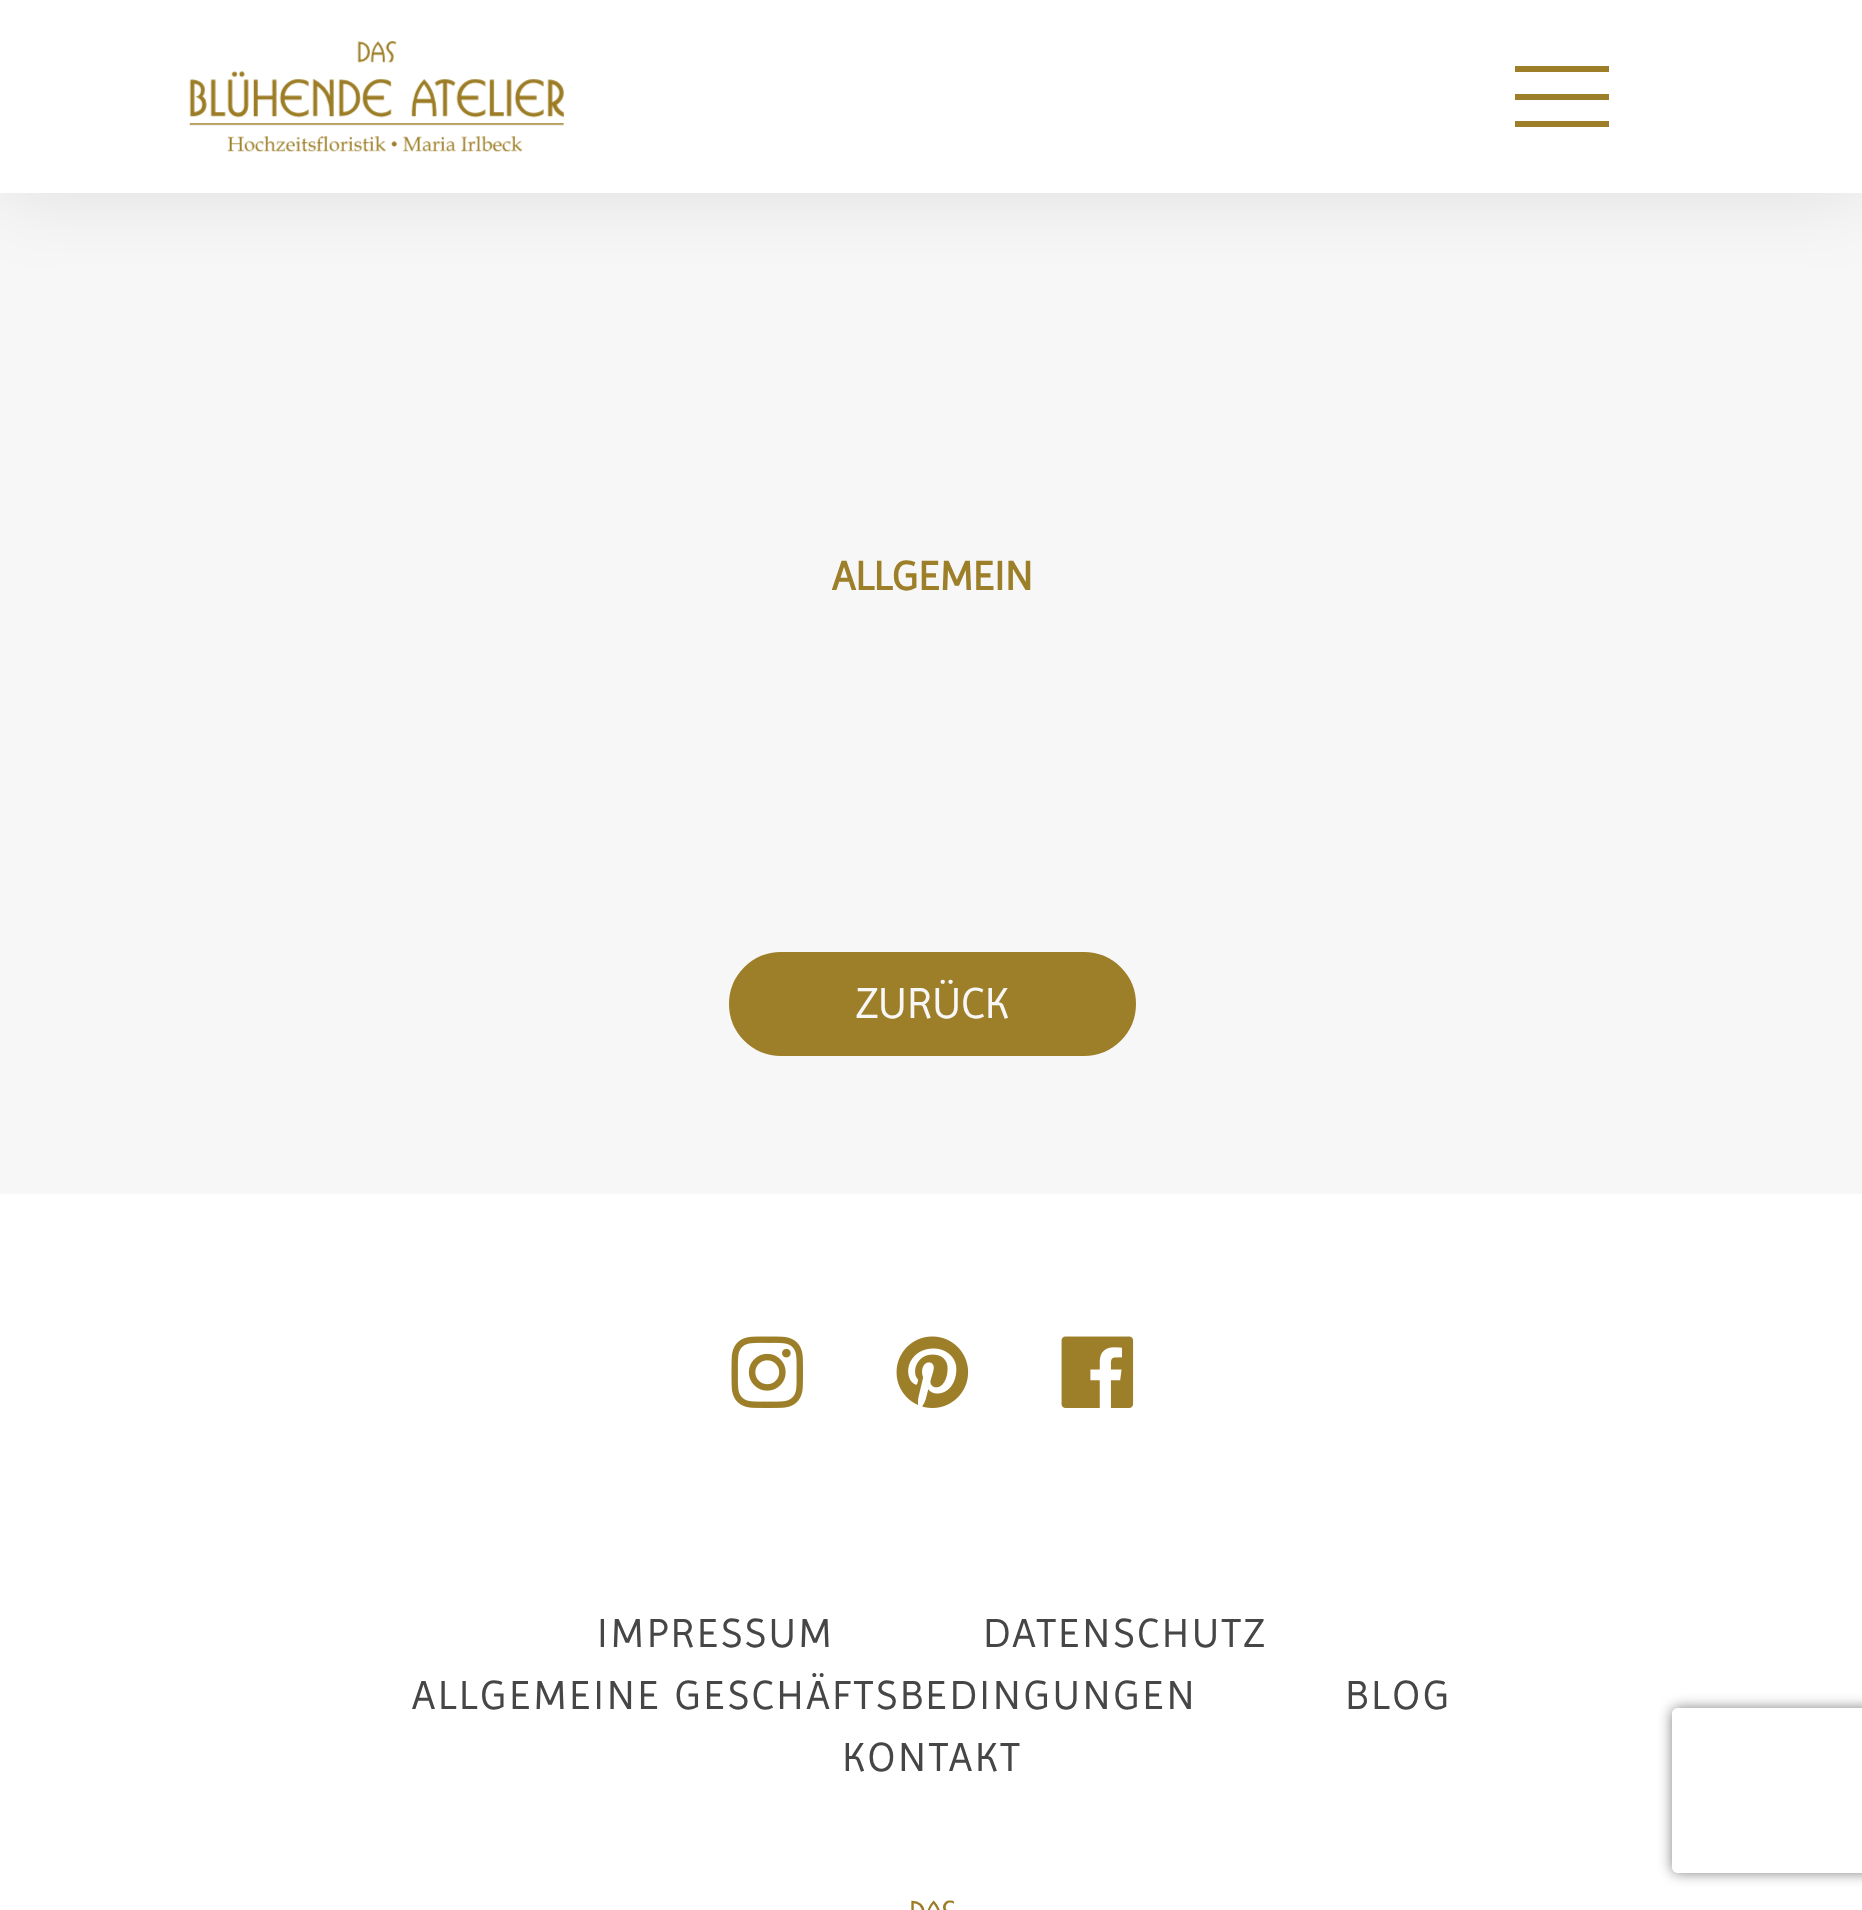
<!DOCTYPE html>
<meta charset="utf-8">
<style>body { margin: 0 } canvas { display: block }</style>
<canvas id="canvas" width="1862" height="1910"></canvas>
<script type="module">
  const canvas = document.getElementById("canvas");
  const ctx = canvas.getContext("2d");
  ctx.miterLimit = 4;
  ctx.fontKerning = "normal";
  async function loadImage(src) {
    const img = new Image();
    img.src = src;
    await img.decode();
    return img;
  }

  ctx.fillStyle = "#ffffff";
  ctx.fillRect(0, 0, 1862, 1910);
  ctx.fillStyle = "#f7f7f7";
  ctx.fillRect(0, 193, 1862, 1001);
  ctx.fillStyle = "rgba(0, 0, 0, 0.1)";
  ctx.filter = "blur(41px)";
  ctx.beginPath();
  ctx.rect(0, 0, 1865, 193);
  ctx.fill();
  ctx.filter = "none";
  ctx.fillStyle = "#ffffff";
  ctx.fillRect(0, 0, 1862, 193);
  ctx.drawImage(await loadImage("img1.png"), 189, 41, 375, 111);
  ctx.fillStyle = "#9d7f29";
  ctx.fillRect(1515, 66, 94, 6);
  ctx.fillRect(1515, 94, 94, 6);
  ctx.fillRect(1515, 121, 94, 6);
  ctx.font = "bold 41.25px Imprima";
  ctx.fillText("ALLGEMEIN", 832, 590);
  ctx.beginPath();
  ctx.roundRect(730.5, 953.5, 404, 101, 50.5);
  ctx.fill();
  ctx.strokeStyle = "#9d7f29";
  ctx.lineWidth = 3;
  ctx.stroke();
  ctx.font = "44px Imprima";
  ctx.fillStyle = "#f7f7f7";
  ctx.fillText("ZURÜCK", 856, 1018);
  ctx.drawImage(await loadImage("img2.png"), 731, 1336, 72, 72);
  ctx.drawImage(await loadImage("img3.png"), 896, 1336, 73, 72);
  ctx.drawImage(await loadImage("img4.png"), 1061, 1336, 73, 72);
  ctx.letterSpacing = "2.75px";
  ctx.font = "41.25px Imprima";
  ctx.fillStyle = "#464646";
  ctx.fillText("IMPRESSUM", 597, 1647);
  ctx.fillText("DATENSCHUTZ", 983, 1647);
  ctx.fillText("ALLGEMEINE GESCHÄFTSBEDINGUNGEN", 412, 1709);
  ctx.fillText("BLOG", 1345, 1709);
  ctx.fillText("KONTAKT", 842, 1771);
  ctx.drawImage(await loadImage("img5.png"), 911, 1900, 43, 10);
  ctx.save();
  ctx.beginPath();
  ctx.moveTo(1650, 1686);
  ctx.lineTo(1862, 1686);
  ctx.lineTo(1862, 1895);
  ctx.lineTo(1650, 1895);
  ctx.closePath();
  ctx.moveTo(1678, 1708);
  ctx.lineTo(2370, 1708);
  ctx.bezierCurveTo(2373.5, 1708, 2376, 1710.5, 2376, 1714);
  ctx.lineTo(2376, 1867);
  ctx.bezierCurveTo(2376, 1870.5, 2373.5, 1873, 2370, 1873);
  ctx.lineTo(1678, 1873);
  ctx.bezierCurveTo(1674.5, 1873, 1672, 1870.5, 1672, 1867);
  ctx.lineTo(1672, 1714);
  ctx.bezierCurveTo(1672, 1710.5, 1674.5, 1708, 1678, 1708);
  ctx.closePath();
  ctx.clip("evenodd");
  ctx.fillStyle = "#808080";
  ctx.filter = "blur(7px)";
  ctx.beginPath();
  ctx.roundRect(1672, 1708, 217, 165, 6);
  ctx.fill();
  ctx.filter = "none";
  ctx.restore();
</script>
